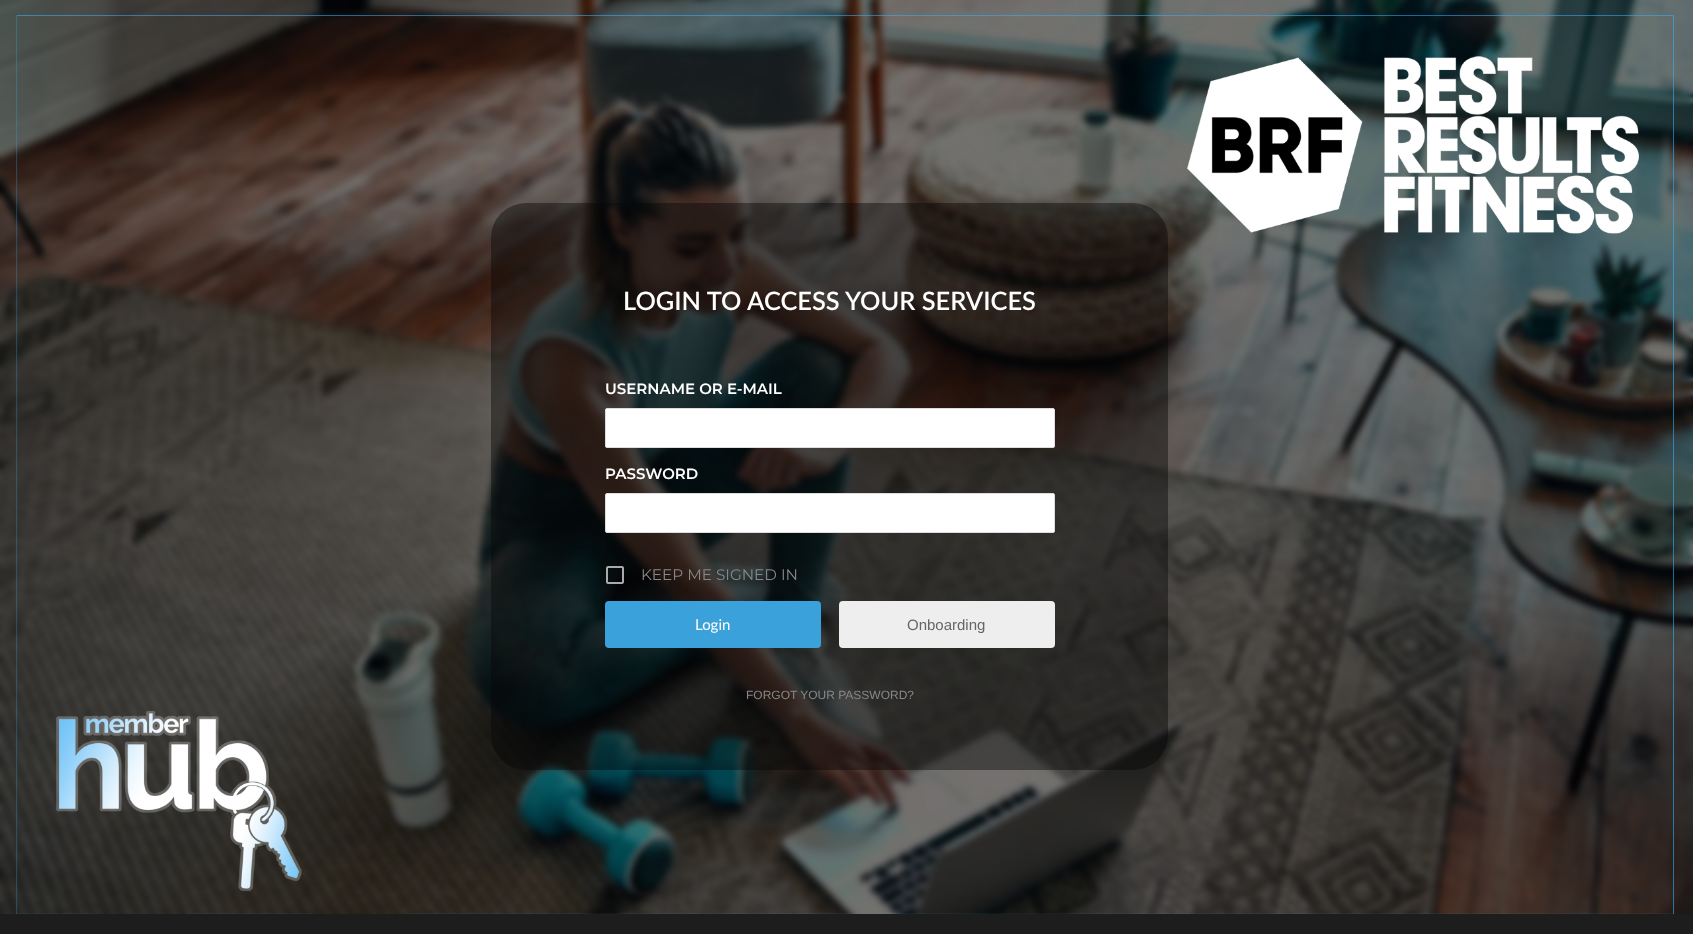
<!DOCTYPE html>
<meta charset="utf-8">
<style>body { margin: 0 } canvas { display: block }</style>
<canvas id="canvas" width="1693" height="934"></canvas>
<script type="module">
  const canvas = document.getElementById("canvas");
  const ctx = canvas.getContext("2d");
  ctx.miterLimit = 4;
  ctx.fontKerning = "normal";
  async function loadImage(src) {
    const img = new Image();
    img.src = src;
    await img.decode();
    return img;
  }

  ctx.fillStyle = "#1e1d1d";
  ctx.fillRect(0, 0, 1693, 934);
  ctx.drawImage(await loadImage("img1.png"), 0, 0, 1693, 914);
  ctx.fillStyle = "rgba(6, 6, 6, 0.43)";
  ctx.beginPath();
  ctx.roundRect(491, 203, 677, 567, 35);
  ctx.fill();
  ctx.font = "600 25.4px Lato";
  ctx.fillStyle = "#ffffff";
  ctx.fillText("LOGIN TO ACCESS YOUR SERVICES", 623, 310);
  ctx.font = "600 15px Montserrat";
  ctx.fillText("USERNAME OR E-MAIL", 605, 394);
  ctx.beginPath();
  ctx.roundRect(605.5, 408.5, 449, 39, 1.5);
  ctx.fill();
  ctx.strokeStyle = "#dddddd";
  ctx.stroke();
  ctx.fillText("PASSWORD", 605, 479);
  ctx.beginPath();
  ctx.roundRect(605.5, 493.5, 449, 39, 1.5);
  ctx.fill();
  ctx.stroke();
  ctx.drawImage(await loadImage("img2.png"), 606, 566, 18, 18);
  ctx.font = "15.25px Montserrat";
  ctx.fillStyle = "#888888";
  ctx.fillText("KEEP ME SIGNED IN", 641, 580);
  ctx.fillStyle = "#3ba1da";
  ctx.beginPath();
  ctx.roundRect(605, 601, 216, 47, 4);
  ctx.fill();
  ctx.font = "15px Lato";
  ctx.fillStyle = "#ffffff";
  ctx.fillText("Login", 695, 630);
  ctx.fillStyle = "#eeeeee";
  ctx.beginPath();
  ctx.roundRect(839, 601, 216, 47, 4);
  ctx.fill();
  ctx.font = "15px Liberation Sans";
  ctx.fillStyle = "#666666";
  ctx.fillText("Onboarding", 907, 630);
  ctx.font = "12px Liberation Sans";
  ctx.fillStyle = "#888888";
  ctx.fillText("FORGOT YOUR PASSWORD?", 746, 699);
</script>
